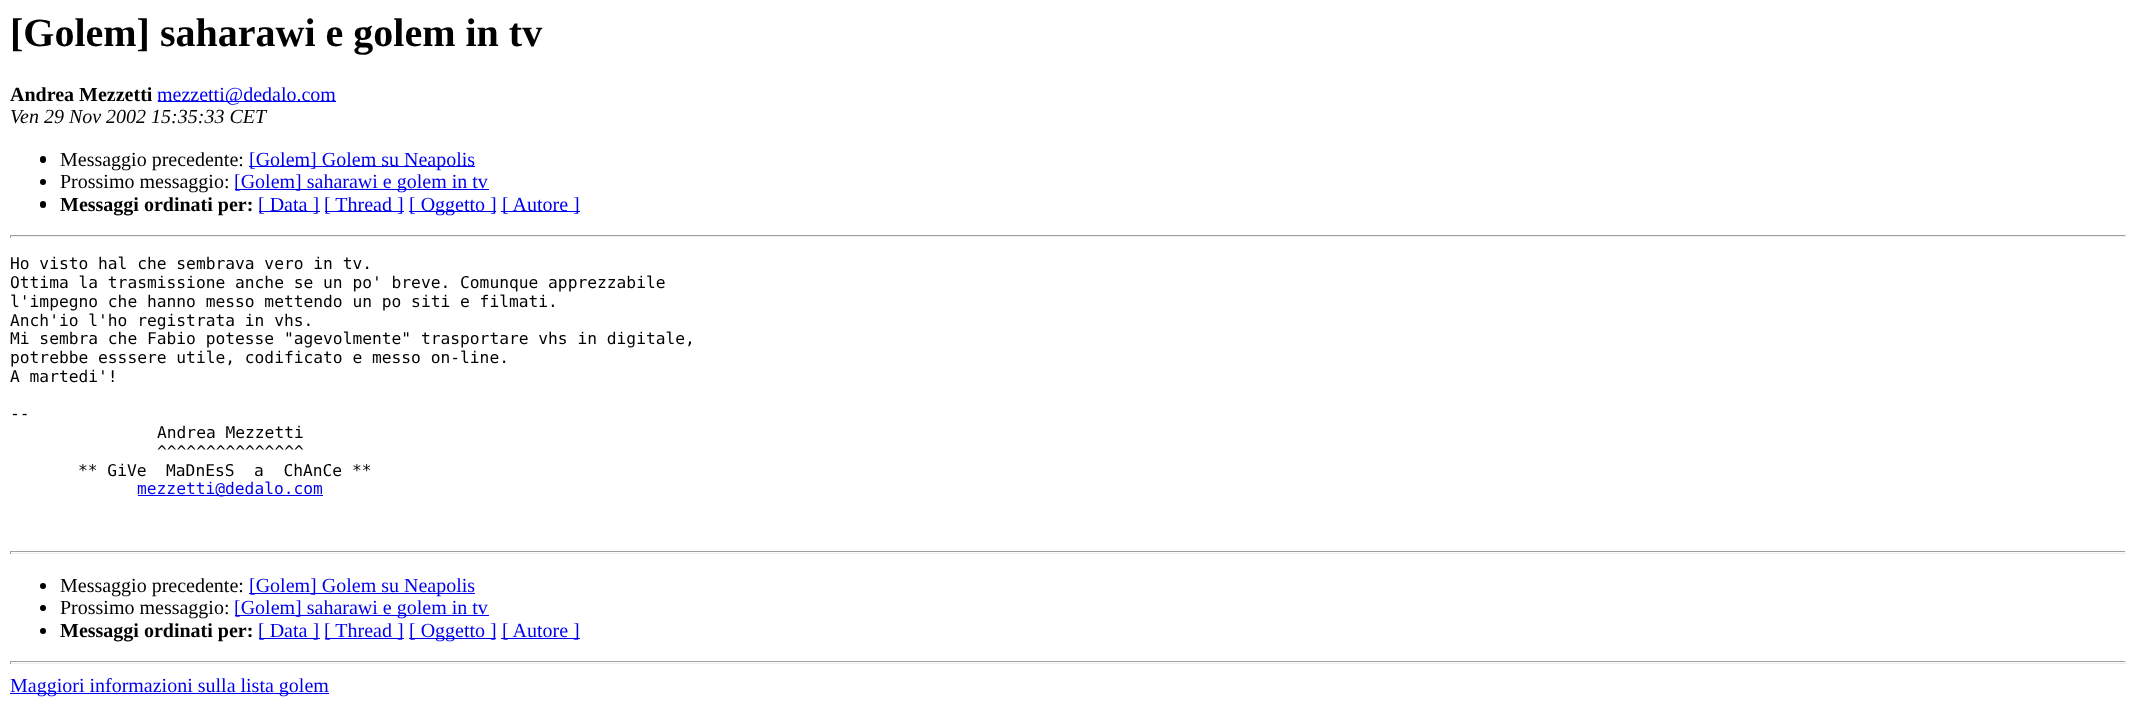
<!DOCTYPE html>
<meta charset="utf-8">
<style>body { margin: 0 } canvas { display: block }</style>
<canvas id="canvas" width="2136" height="715"></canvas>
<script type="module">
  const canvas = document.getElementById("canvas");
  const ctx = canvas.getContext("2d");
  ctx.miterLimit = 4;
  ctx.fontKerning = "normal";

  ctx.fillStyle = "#ffffff";
  ctx.fillRect(0, 0, 2136, 715);
  ctx.font = "bold 40px Liberation Serif";
  ctx.fillStyle = "#000000";
  ctx.fillText("[Golem] saharawi e golem in tv", 10, 46);
  ctx.font = "bold 20px Liberation Serif";
  ctx.fillText("Andrea Mezzetti", 10, 101);
  ctx.fillStyle = "#0000ee";
  ctx.fillRect(158, 101, 178, 1);
  ctx.font = "20px Liberation Serif";
  ctx.fillText("mezzetti@dedalo.com", 157, 101);
  ctx.font = "italic 20px Liberation Serif";
  ctx.fillStyle = "#000000";
  ctx.fillText("Ven 29 Nov 2002 15:35:33 CET", 10, 123);
  ctx.beginPath();
  ctx.roundRect(40, 156, 6, 7, 3);
  ctx.fill();
  ctx.font = "20px Liberation Serif";
  ctx.fillText("Messaggio precedente:", 60, 166);
  ctx.fillStyle = "#0000ee";
  ctx.fillRect(249, 166, 226, 1);
  ctx.fillText("[Golem] Golem su Neapolis", 249, 166);
  ctx.fillStyle = "#000000";
  ctx.beginPath();
  ctx.arc(43, 182, 3, 0, Math.PI * 2);
  ctx.fill();
  ctx.fillText("Prossimo messaggio:", 60, 188);
  ctx.fillStyle = "#0000ee";
  ctx.fillRect(235, 189, 254, 1);
  ctx.fillText("[Golem] saharawi e golem in tv", 234, 188);
  ctx.fillStyle = "#000000";
  ctx.beginPath();
  ctx.roundRect(40, 201, 6, 7, 3);
  ctx.fill();
  ctx.font = "bold 20px Liberation Serif";
  ctx.fillText("Messaggi ordinati per:", 60, 211);
  ctx.fillStyle = "#0000ee";
  ctx.fillRect(259, 211, 61, 1);
  ctx.font = "20px Liberation Serif";
  ctx.fillText("[ Data ]", 258, 211);
  ctx.fillRect(325, 211, 79, 1);
  ctx.fillText("[ Thread ]", 324, 211);
  ctx.fillRect(409, 211, 87, 1);
  ctx.fillText("[ Oggetto ]", 409, 211);
  ctx.fillRect(501, 211, 79, 1);
  ctx.fillText("[ Autore ]", 502, 211);
  ctx.fillStyle = "#9f9f9f";
  ctx.fillRect(10, 235, 2116, 1);
  ctx.fillStyle = "#eeeeee";
  ctx.fillRect(2125, 235, 1, 3);
  ctx.fillRect(10, 236, 2116, 1);
  ctx.fillStyle = "#9f9f9f";
  ctx.fillRect(10, 235, 1, 3);
  ctx.font = "16.25px DejaVu Sans Mono";
  ctx.fillStyle = "#000000";
  ctx.fillText("Ho visto hal che sembrava vero in tv.", 10, 269);
  ctx.fillText("Ottima la trasmissione anche se un po' breve. Comunque apprezzabile", 10, 288);
  ctx.fillText("l'impegno che hanno messo mettendo un po siti e filmati.", 10, 307);
  ctx.fillText("Anch'io l'ho registrata in vhs.", 10, 326);
  ctx.fillText("Mi sembra che Fabio potesse \"agevolmente\" trasportare vhs in digitale,", 10, 344);
  ctx.fillText("potrebbe esssere utile, codificato e messo on-line.", 10, 363);
  ctx.fillText("A martedi'!", 10, 382);
  ctx.fillText("--", 10, 419);
  ctx.fillText("Andrea Mezzetti", 157, 438);
  ctx.fillText("^^^^^^^^^^^^^^^", 157, 457);
  ctx.fillText("** GiVe  MaDnEsS  a  ChAnCe **", 78, 476);
  ctx.fillStyle = "#0000ee";
  ctx.fillRect(138, 495, 185, 1);
  ctx.fillText("mezzetti@dedalo.com", 137, 494);
  ctx.fillStyle = "#9f9f9f";
  ctx.fillRect(10, 551, 2116, 1);
  ctx.fillStyle = "#eeeeee";
  ctx.fillRect(2125, 551, 1, 3);
  ctx.fillRect(10, 553, 2116, 1);
  ctx.fillStyle = "#9f9f9f";
  ctx.fillRect(10, 551, 1, 3);
  ctx.fillStyle = "#000000";
  ctx.beginPath();
  ctx.arc(43, 586, 3, 0, Math.PI * 2);
  ctx.fill();
  ctx.font = "20px Liberation Serif";
  ctx.fillText("Messaggio precedente:", 60, 592);
  ctx.fillStyle = "#0000ee";
  ctx.fillRect(249, 593, 226, 1);
  ctx.fillText("[Golem] Golem su Neapolis", 249, 592);
  ctx.fillStyle = "#000000";
  ctx.beginPath();
  ctx.arc(43, 608, 3, 0, Math.PI * 2);
  ctx.fill();
  ctx.fillText("Prossimo messaggio:", 60, 614);
  ctx.fillStyle = "#0000ee";
  ctx.fillRect(235, 615, 254, 1);
  ctx.fillText("[Golem] saharawi e golem in tv", 234, 614);
  ctx.fillStyle = "#000000";
  ctx.beginPath();
  ctx.arc(43, 631, 3, 0, Math.PI * 2);
  ctx.fill();
  ctx.font = "bold 20px Liberation Serif";
  ctx.fillText("Messaggi ordinati per:", 60, 637);
  ctx.fillStyle = "#0000ee";
  ctx.fillRect(259, 638, 61, 1);
  ctx.font = "20px Liberation Serif";
  ctx.fillText("[ Data ]", 258, 637);
  ctx.fillRect(325, 638, 79, 1);
  ctx.fillText("[ Thread ]", 324, 637);
  ctx.fillRect(409, 638, 87, 1);
  ctx.fillText("[ Oggetto ]", 409, 637);
  ctx.fillRect(501, 638, 79, 1);
  ctx.fillText("[ Autore ]", 502, 637);
  ctx.fillStyle = "#9f9f9f";
  ctx.fillRect(10, 661, 2116, 1);
  ctx.fillStyle = "#eeeeee";
  ctx.fillRect(2125, 661, 1, 3);
  ctx.fillRect(10, 663, 2116, 1);
  ctx.fillStyle = "#9f9f9f";
  ctx.fillRect(10, 661, 1, 3);
  ctx.fillStyle = "#0000ee";
  ctx.fillRect(10, 693, 319, 1);
  ctx.fillText("Maggiori informazioni sulla lista golem", 10, 692);
</script>
